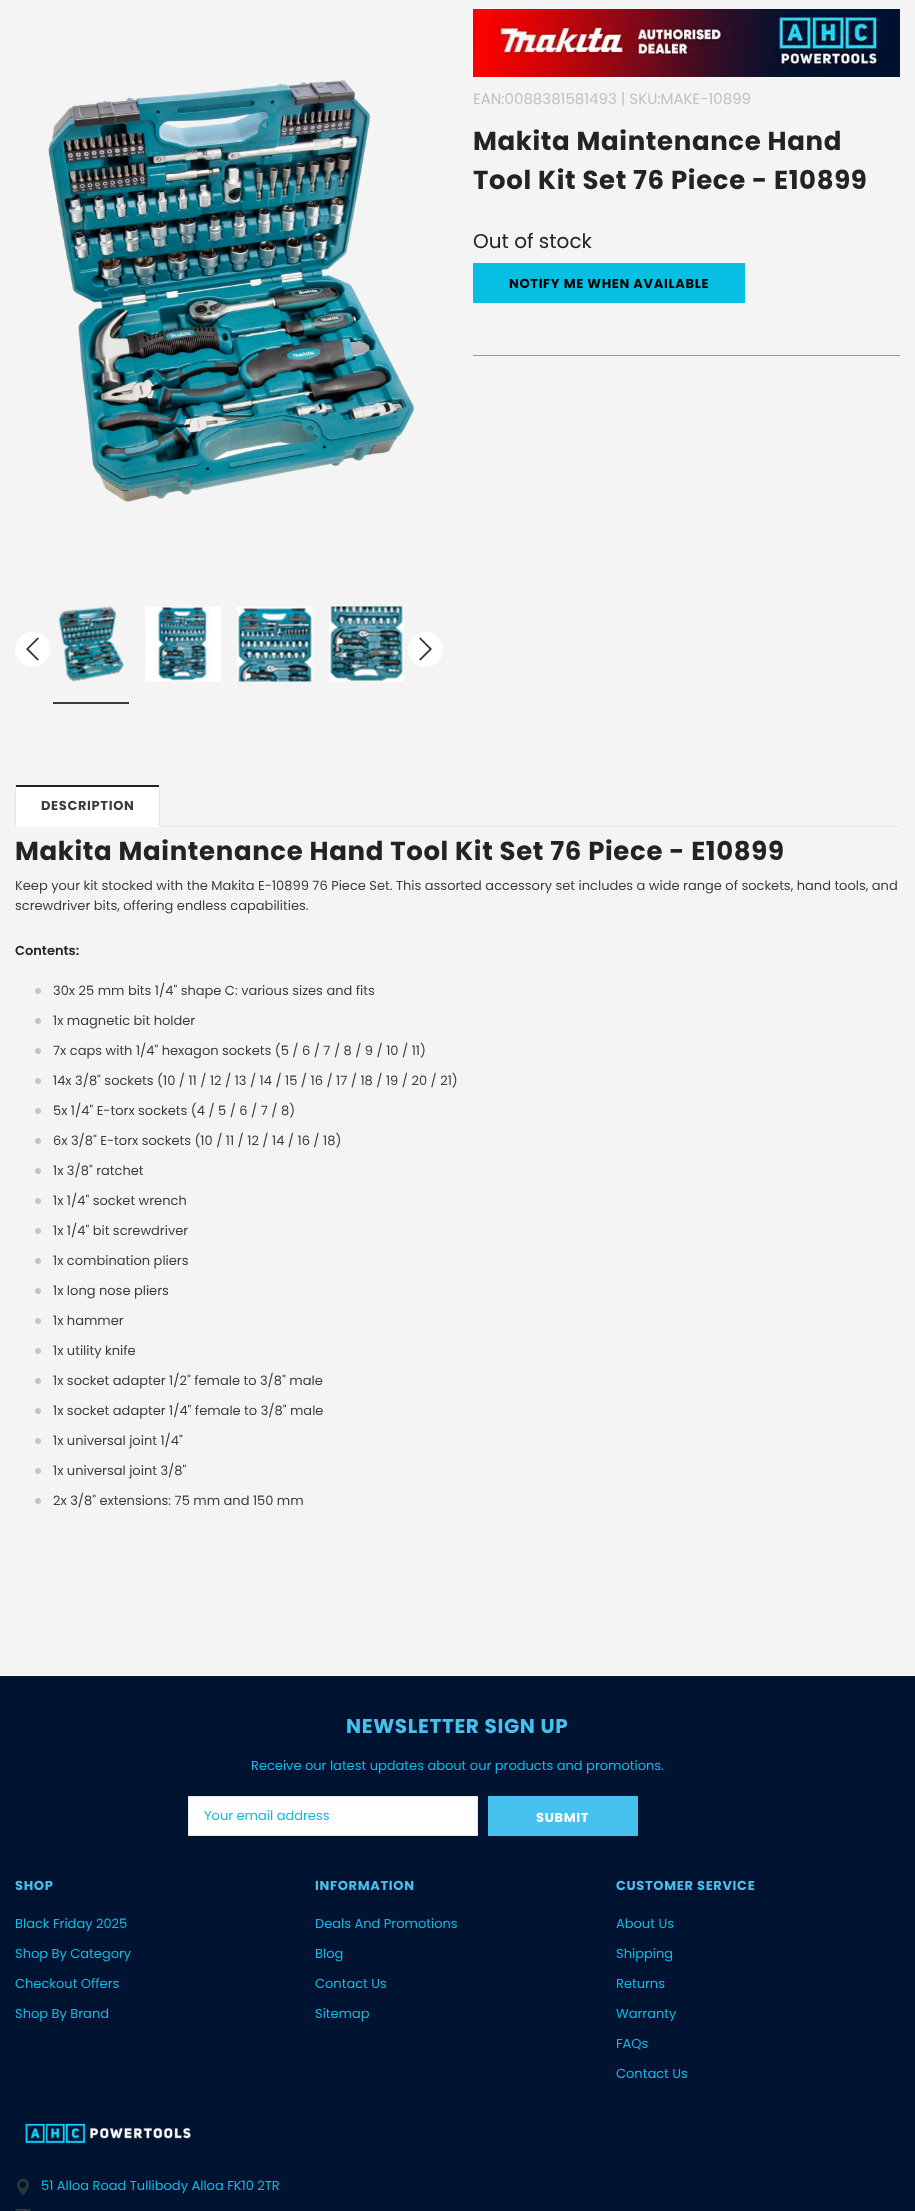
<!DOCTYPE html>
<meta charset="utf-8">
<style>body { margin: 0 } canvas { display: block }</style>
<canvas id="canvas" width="915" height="2211"></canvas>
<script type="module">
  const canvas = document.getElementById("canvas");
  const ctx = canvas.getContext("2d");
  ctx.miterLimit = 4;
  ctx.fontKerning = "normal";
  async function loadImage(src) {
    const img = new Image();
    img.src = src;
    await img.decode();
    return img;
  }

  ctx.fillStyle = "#f4f4f4";
  ctx.fillRect(0, 0, 915, 2211);
  ctx.drawImage(await loadImage("img1.png"), 48, 80, 366, 422);
  ctx.fillStyle = "#ffffff";
  ctx.beginPath();
  ctx.arc(32.5, 649.5, 17.5, 0, Math.PI * 2);
  ctx.fill();
  ctx.fillStyle = "#323232";
  ctx.beginPath();
  ctx.moveTo(39, 638.5);
  ctx.lineTo(37.5, 637.5);
  ctx.lineTo(26, 649);
  ctx.lineTo(37.5, 660.5);
  ctx.lineTo(39, 659.5);
  ctx.lineTo(28.5, 649);
  ctx.closePath();
  ctx.fill();
  ctx.drawImage(await loadImage("img2.png"), 58, 606, 66, 76);
  ctx.fillStyle = "#3c3c3c";
  ctx.fillRect(53, 702, 76, 2);
  ctx.drawImage(await loadImage("img3.png"), 145, 606, 76, 76);
  ctx.drawImage(await loadImage("img4.png"), 237, 606, 76, 76);
  ctx.drawImage(await loadImage("img5.png"), 329, 606, 75, 76);
  ctx.fillStyle = "#ffffff";
  ctx.beginPath();
  ctx.arc(425.5, 649.5, 17.5, 0, Math.PI * 2);
  ctx.fill();
  ctx.fillStyle = "#323232";
  ctx.beginPath();
  ctx.moveTo(420.5, 637.5);
  ctx.lineTo(419, 638.5);
  ctx.lineTo(429.5, 649);
  ctx.lineTo(419, 659.5);
  ctx.lineTo(420.5, 660.5);
  ctx.lineTo(432, 649);
  ctx.closePath();
  ctx.fill();
  ctx.drawImage(await loadImage("img6.png"), 473, 9, 427, 68);
  ctx.font = "15px Poppins";
  ctx.fillStyle = "#c0c0c0";
  ctx.fillText("EAN:0088381581493", 473, 104);
  ctx.fillText("| SKU:MAKE-10899", 621, 104);
  ctx.letterSpacing = "0.65px";
  ctx.font = "bold 26px Poppins";
  ctx.fillStyle = "#232323";
  ctx.fillText("Makita Maintenance Hand", 473, 150);
  ctx.fillText("Tool Kit Set 76 Piece - E10899", 473, 189);
  ctx.letterSpacing = "0px";
  ctx.font = "20px Poppins";
  ctx.fillText("Out of stock", 473, 248);
  ctx.fillStyle = "#06bfe2";
  ctx.fillRect(473, 263, 272, 40);
  ctx.letterSpacing = "0.65px";
  ctx.font = "bold 13px Poppins";
  ctx.fillStyle = "#000000";
  ctx.fillText("NOTIFY ME WHEN AVAILABLE", 509, 288);
  ctx.fillStyle = "#999999";
  ctx.fillRect(473, 355, 427, 1);
  ctx.fillStyle = "#e6e6e6";
  ctx.fillRect(160, 826, 740, 1);
  ctx.fillRect(159, 785, 1, 42);
  ctx.fillStyle = "#ffffff";
  ctx.fillRect(15, 826, 145, 1);
  ctx.fillStyle = "#e6e6e6";
  ctx.fillRect(15, 785, 1, 42);
  ctx.fillStyle = "#232323";
  ctx.fillRect(16, 785, 143, 2);
  ctx.fillStyle = "#ffffff";
  ctx.fillRect(16, 787, 143, 39);
  ctx.fillStyle = "#3c3c3c";
  ctx.fillText("DESCRIPTION", 41, 810);
  ctx.font = "bold 26px Poppins";
  ctx.fillStyle = "#232323";
  ctx.fillText("Makita Maintenance Hand Tool Kit Set 76 Piece - E10899", 15, 860);
  ctx.letterSpacing = "0px";
  ctx.font = "13px Poppins";
  ctx.fillStyle = "#3c3c3c";
  ctx.fillText("Keep your kit stocked with the Makita E-10899 76 Piece Set. This assorted accessory set includes a wide range of sockets, hand tools, and", 15, 890);
  ctx.fillText("screwdriver bits, offering endless capabilities.", 15, 910);
  ctx.font = "600 13px Poppins";
  ctx.fillStyle = "#232323";
  ctx.fillText("Contents:", 15, 955);
  ctx.fillStyle = "#c6c6c6";
  ctx.beginPath();
  ctx.arc(38, 991, 3, 0, Math.PI * 2);
  ctx.fill();
  ctx.font = "13px Poppins";
  ctx.fillStyle = "#3c3c3c";
  ctx.fillText("30x 25 mm bits 1/4\" shape C: various sizes and fits", 53, 995);
  ctx.fillStyle = "#c6c6c6";
  ctx.beginPath();
  ctx.arc(38, 1021, 3, 0, Math.PI * 2);
  ctx.fill();
  ctx.fillStyle = "#3c3c3c";
  ctx.fillText("1x magnetic bit holder", 53, 1025);
  ctx.fillStyle = "#c6c6c6";
  ctx.beginPath();
  ctx.arc(38, 1051, 3, 0, Math.PI * 2);
  ctx.fill();
  ctx.fillStyle = "#3c3c3c";
  ctx.fillText("7x caps with 1/4\" hexagon sockets (5 / 6 / 7 / 8 / 9 / 10 / 11)", 53, 1055);
  ctx.fillStyle = "#c6c6c6";
  ctx.beginPath();
  ctx.arc(38, 1081, 3, 0, Math.PI * 2);
  ctx.fill();
  ctx.fillStyle = "#3c3c3c";
  ctx.fillText("14x 3/8\" sockets (10 / 11 / 12 / 13 / 14 / 15 / 16 / 17 / 18 / 19 / 20 / 21)", 53, 1085);
  ctx.fillStyle = "#c6c6c6";
  ctx.beginPath();
  ctx.arc(38, 1111, 3, 0, Math.PI * 2);
  ctx.fill();
  ctx.fillStyle = "#3c3c3c";
  ctx.fillText("5x 1/4\" E-torx sockets (4 / 5 / 6 / 7 / 8)", 53, 1115);
  ctx.fillStyle = "#c6c6c6";
  ctx.beginPath();
  ctx.arc(38, 1141, 3, 0, Math.PI * 2);
  ctx.fill();
  ctx.fillStyle = "#3c3c3c";
  ctx.fillText("6x 3/8\" E-torx sockets (10 / 11 / 12 / 14 / 16 / 18)", 53, 1145);
  ctx.fillStyle = "#c6c6c6";
  ctx.beginPath();
  ctx.arc(38, 1171, 3, 0, Math.PI * 2);
  ctx.fill();
  ctx.fillStyle = "#3c3c3c";
  ctx.fillText("1x 3/8\" ratchet", 53, 1175);
  ctx.fillStyle = "#c6c6c6";
  ctx.beginPath();
  ctx.arc(38, 1201, 3, 0, Math.PI * 2);
  ctx.fill();
  ctx.fillStyle = "#3c3c3c";
  ctx.fillText("1x 1/4\" socket wrench", 53, 1205);
  ctx.fillStyle = "#c6c6c6";
  ctx.beginPath();
  ctx.arc(38, 1231, 3, 0, Math.PI * 2);
  ctx.fill();
  ctx.fillStyle = "#3c3c3c";
  ctx.fillText("1x 1/4\" bit screwdriver", 53, 1235);
  ctx.fillStyle = "#c6c6c6";
  ctx.beginPath();
  ctx.arc(38, 1261, 3, 0, Math.PI * 2);
  ctx.fill();
  ctx.fillStyle = "#3c3c3c";
  ctx.fillText("1x combination pliers", 53, 1265);
  ctx.fillStyle = "#c6c6c6";
  ctx.beginPath();
  ctx.arc(38, 1291, 3, 0, Math.PI * 2);
  ctx.fill();
  ctx.fillStyle = "#3c3c3c";
  ctx.fillText("1x long nose pliers", 53, 1295);
  ctx.fillStyle = "#c6c6c6";
  ctx.beginPath();
  ctx.arc(38, 1321, 3, 0, Math.PI * 2);
  ctx.fill();
  ctx.fillStyle = "#3c3c3c";
  ctx.fillText("1x hammer", 53, 1325);
  ctx.fillStyle = "#c6c6c6";
  ctx.beginPath();
  ctx.arc(38, 1351, 3, 0, Math.PI * 2);
  ctx.fill();
  ctx.fillStyle = "#3c3c3c";
  ctx.fillText("1x utility knife", 53, 1355);
  ctx.fillStyle = "#c6c6c6";
  ctx.beginPath();
  ctx.arc(38, 1381, 3, 0, Math.PI * 2);
  ctx.fill();
  ctx.fillStyle = "#3c3c3c";
  ctx.fillText("1x socket adapter 1/2\" female to 3/8\" male", 53, 1385);
  ctx.fillStyle = "#c6c6c6";
  ctx.beginPath();
  ctx.arc(38, 1411, 3, 0, Math.PI * 2);
  ctx.fill();
  ctx.fillStyle = "#3c3c3c";
  ctx.fillText("1x socket adapter 1/4\" female to 3/8\" male", 53, 1415);
  ctx.fillStyle = "#c6c6c6";
  ctx.beginPath();
  ctx.arc(38, 1441, 3, 0, Math.PI * 2);
  ctx.fill();
  ctx.fillStyle = "#3c3c3c";
  ctx.fillText("1x universal joint 1/4\"", 53, 1445);
  ctx.fillStyle = "#c6c6c6";
  ctx.beginPath();
  ctx.arc(38, 1471, 3, 0, Math.PI * 2);
  ctx.fill();
  ctx.fillStyle = "#3c3c3c";
  ctx.fillText("1x universal joint 3/8\"", 53, 1475);
  ctx.fillStyle = "#c6c6c6";
  ctx.beginPath();
  ctx.arc(38, 1501, 3, 0, Math.PI * 2);
  ctx.fill();
  ctx.fillStyle = "#3c3c3c";
  ctx.fillText("2x 3/8\" extensions: 75 mm and 150 mm", 53, 1505);
  ctx.fillStyle = "#001432";
  ctx.fillRect(0, 1676, 915, 535);
  ctx.fillStyle = "#fafafa";
  ctx.fillRect(0, 1675, 915, 1);
  ctx.letterSpacing = "0.65px";
  ctx.font = "bold 20px Poppins";
  ctx.fillStyle = "#46c1ed";
  ctx.fillText("NEWSLETTER SIGN UP", 346, 1733);
  ctx.letterSpacing = "0px";
  ctx.font = "13px Poppins";
  ctx.fillStyle = "#06bfe2";
  ctx.fillText("Receive our latest updates about our products and promotions.", 251, 1770);
  ctx.fillStyle = "#ffffff";
  ctx.beginPath();
  ctx.rect(188.5, 1796.5, 289, 39);
  ctx.fill();
  ctx.strokeStyle = "#ebebeb";
  ctx.stroke();
  ctx.fillStyle = "#06bfe2";
  ctx.fillText("Your email address", 204, 1820);
  ctx.fillStyle = "#46c1ed";
  ctx.fillRect(488, 1796, 150, 40);
  ctx.letterSpacing = "0.65px";
  ctx.font = "bold 13px Poppins";
  ctx.fillStyle = "#ffffff";
  ctx.fillText("SUBMIT", 536, 1822);
  ctx.fillStyle = "#46c1ed";
  ctx.fillText("SHOP", 15, 1890);
  ctx.letterSpacing = "0px";
  ctx.font = "13px Poppins";
  ctx.fillStyle = "#06bfe2";
  ctx.fillText("Black Friday 2025", 15, 1928);
  ctx.fillText("Shop By Category", 15, 1958);
  ctx.fillText("Checkout Offers", 15, 1988);
  ctx.fillText("Shop By Brand", 15, 2018);
  ctx.letterSpacing = "0.65px";
  ctx.font = "bold 13px Poppins";
  ctx.fillStyle = "#46c1ed";
  ctx.fillText("INFORMATION", 315, 1890);
  ctx.letterSpacing = "0px";
  ctx.font = "13px Poppins";
  ctx.fillStyle = "#06bfe2";
  ctx.fillText("Deals And Promotions", 315, 1928);
  ctx.fillText("Blog", 315, 1958);
  ctx.fillText("Contact Us", 315, 1988);
  ctx.fillText("Sitemap", 315, 2018);
  ctx.letterSpacing = "0.65px";
  ctx.font = "bold 13px Poppins";
  ctx.fillStyle = "#46c1ed";
  ctx.fillText("CUSTOMER SERVICE", 616, 1890);
  ctx.letterSpacing = "0px";
  ctx.font = "13px Poppins";
  ctx.fillStyle = "#06bfe2";
  ctx.fillText("About Us", 616, 1928);
  ctx.fillText("Shipping", 616, 1958);
  ctx.fillText("Returns", 616, 1988);
  ctx.fillText("Warranty", 616, 2018);
  ctx.fillText("FAQs", 616, 2048);
  ctx.fillText("Contact Us", 616, 2078);
  ctx.drawImage(await loadImage("img7.png"), 25, 2123, 166, 21);
  ctx.drawImage(await loadImage("img8.png"), 17, 2179, 12, 16);
  ctx.fillText("51 Alloa Road Tullibody Alloa FK10 2TR", 41, 2190);
  ctx.drawImage(await loadImage("img9.png"), 15, 2209, 16, 2);
</script>
